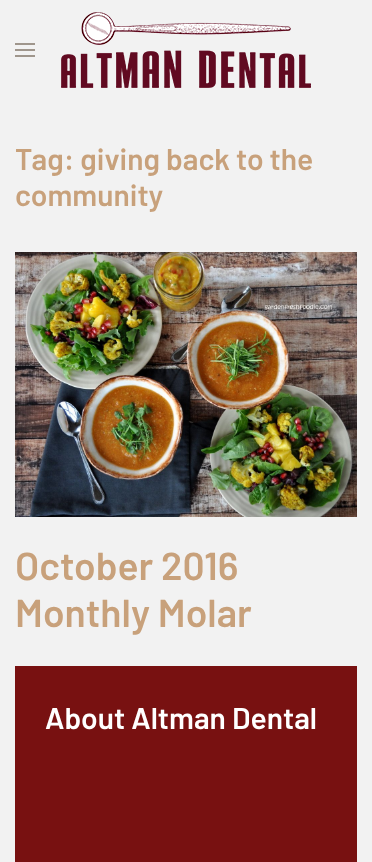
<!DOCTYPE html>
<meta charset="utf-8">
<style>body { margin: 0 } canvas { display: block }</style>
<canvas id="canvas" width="372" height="862"></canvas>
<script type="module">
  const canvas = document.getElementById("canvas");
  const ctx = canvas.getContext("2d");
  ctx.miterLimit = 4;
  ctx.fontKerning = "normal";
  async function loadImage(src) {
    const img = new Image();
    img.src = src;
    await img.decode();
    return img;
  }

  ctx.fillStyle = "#f2f2f2";
  ctx.fillRect(0, 0, 372, 862);
  ctx.fillStyle = "#9f968c";
  ctx.fillRect(15, 43, 20, 2);
  ctx.fillRect(15, 49, 20, 2);
  ctx.fillRect(15, 55, 20, 2);
  ctx.drawImage(await loadImage("img1.png"), 61, 12, 250, 76);
  ctx.font = "600 30px Barlow";
  ctx.fillStyle = "#c8a17b";
  ctx.fillText("Tag: giving back to the", 15, 170);
  ctx.fillText("community", 15, 206);
  ctx.drawImage(await loadImage("img2.png"), 15, 252, 342, 265);
  ctx.font = "600 39px Barlow";
  ctx.fillText("October 2016", 15, 580);
  ctx.fillText("Monthly Molar", 15, 627);
  ctx.fillStyle = "#781111";
  ctx.fillRect(15, 666, 342, 196);
  ctx.font = "600 30px Barlow";
  ctx.fillStyle = "#ffffff";
  ctx.fillText("About Altman Dental", 45, 729);
</script>
